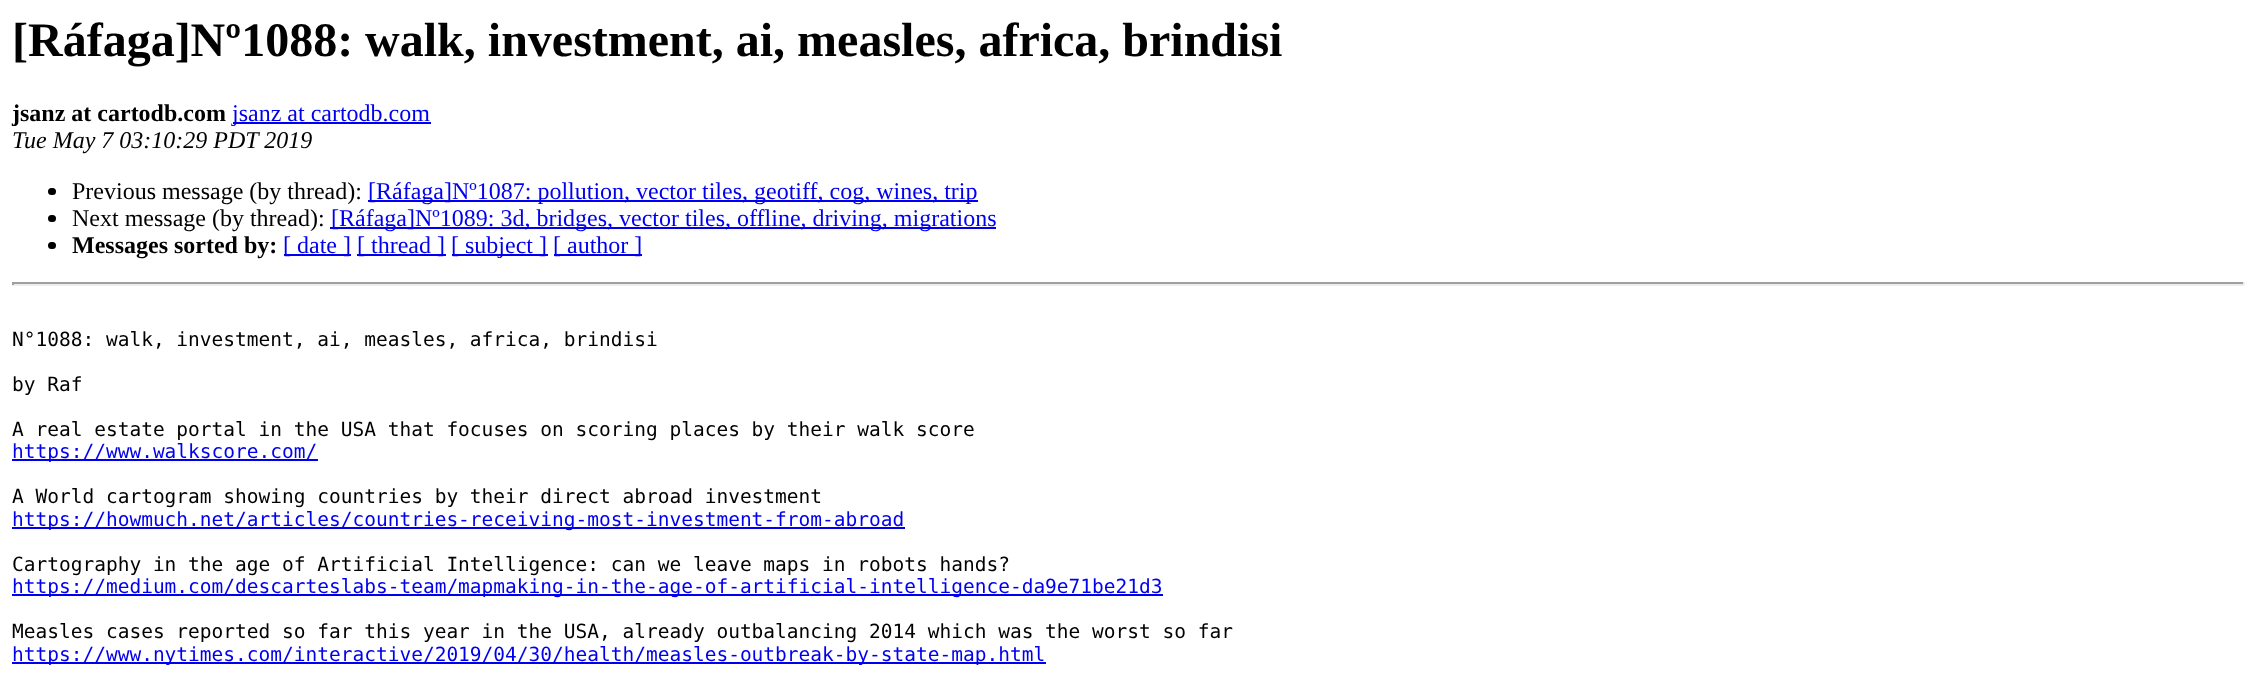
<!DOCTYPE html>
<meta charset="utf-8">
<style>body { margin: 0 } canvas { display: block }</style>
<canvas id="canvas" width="2256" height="681"></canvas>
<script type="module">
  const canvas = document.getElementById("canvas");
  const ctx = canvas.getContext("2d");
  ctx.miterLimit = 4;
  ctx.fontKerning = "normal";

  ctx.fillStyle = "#ffffff";
  ctx.fillRect(0, 0, 2256, 681);
  ctx.font = "bold 48px Liberation Serif";
  ctx.fillStyle = "#000000";
  ctx.fillText("[Ráfaga]Nº1088: walk, investment, ai, measles, africa, brindisi", 12, 56);
  ctx.font = "bold 24px Liberation Serif";
  ctx.fillText("jsanz at cartodb.com", 12, 121);
  ctx.fillStyle = "#0000ee";
  ctx.fillRect(233, 122, 198, 2);
  ctx.font = "24px Liberation Serif";
  ctx.fillText("jsanz at cartodb.com", 232, 121);
  ctx.font = "italic 24px Liberation Serif";
  ctx.fillStyle = "#000000";
  ctx.fillText("Tue May 7 03:10:29 PDT 2019", 12, 148);
  ctx.beginPath();
  ctx.roundRect(48, 188, 8, 7, 3.5);
  ctx.fill();
  ctx.font = "24px Liberation Serif";
  ctx.fillText("Previous message (by thread):", 72, 199);
  ctx.fillStyle = "#0000ee";
  ctx.fillRect(368, 200, 610, 2);
  ctx.fillText("[Ráfaga]Nº1087: pollution, vector tiles, geotiff, cog, wines, trip", 368, 199);
  ctx.fillStyle = "#000000";
  ctx.beginPath();
  ctx.roundRect(48, 215, 8, 7, 3.5);
  ctx.fill();
  ctx.fillText("Next message (by thread):", 72, 226);
  ctx.fillStyle = "#0000ee";
  ctx.fillRect(330, 227, 666, 2);
  ctx.fillText("[Ráfaga]Nº1089: 3d, bridges, vector tiles, offline, driving, migrations", 331, 226);
  ctx.fillStyle = "#000000";
  ctx.beginPath();
  ctx.roundRect(48, 242, 8, 7, 3.5);
  ctx.fill();
  ctx.font = "bold 24px Liberation Serif";
  ctx.fillText("Messages sorted by:", 72, 253);
  ctx.fillStyle = "#0000ee";
  ctx.fillRect(284, 254, 67, 2);
  ctx.font = "24px Liberation Serif";
  ctx.fillText("[ date ]", 283, 253);
  ctx.fillRect(357, 254, 89, 2);
  ctx.fillText("[ thread ]", 357, 253);
  ctx.fillRect(452, 254, 96, 2);
  ctx.fillText("[ subject ]", 451, 253);
  ctx.fillRect(554, 254, 88, 2);
  ctx.fillText("[ author ]", 553, 253);
  ctx.fillStyle = "#9f9f9f";
  ctx.fillRect(12, 282, 2232, 2);
  ctx.fillStyle = "#eeeeee";
  ctx.fillRect(2243, 282, 2, 3);
  ctx.fillRect(12, 284, 2232, 2);
  ctx.fillStyle = "#9f9f9f";
  ctx.fillRect(12, 282, 2, 3);
  ctx.font = "19.5px DejaVu Sans Mono";
  ctx.fillStyle = "#000000";
  ctx.fillText("N°1088: walk, investment, ai, measles, africa, brindisi", 12, 346);
  ctx.fillText("by Raf", 12, 391);
  ctx.fillText("A real estate portal in the USA that focuses on scoring places by their walk score", 12, 436);
  ctx.fillStyle = "#0000ee";
  ctx.fillRect(12, 459, 306, 2);
  ctx.fillText("https://www.walkscore.com/", 12, 458);
  ctx.fillStyle = "#000000";
  ctx.fillText("A World cartogram showing countries by their direct abroad investment", 12, 503);
  ctx.fillStyle = "#0000ee";
  ctx.fillRect(12, 527, 893, 2);
  ctx.fillText("https://howmuch.net/articles/countries-receiving-most-investment-from-abroad", 12, 526);
  ctx.fillStyle = "#000000";
  ctx.fillText("Cartography in the age of Artificial Intelligence: can we leave maps in robots hands?", 12, 571);
  ctx.fillStyle = "#0000ee";
  ctx.fillRect(12, 594, 1151, 2);
  ctx.fillText("https://medium.com/descarteslabs-team/mapmaking-in-the-age-of-artificial-intelligence-da9e71be21d3", 12, 593);
  ctx.fillStyle = "#000000";
  ctx.fillText("Measles cases reported so far this year in the USA, already outbalancing 2014 which was the worst so far", 12, 638);
  ctx.fillStyle = "#0000ee";
  ctx.fillRect(12, 662, 1034, 2);
  ctx.fillText("https://www.nytimes.com/interactive/2019/04/30/health/measles-outbreak-by-state-map.html", 12, 661);
</script>
